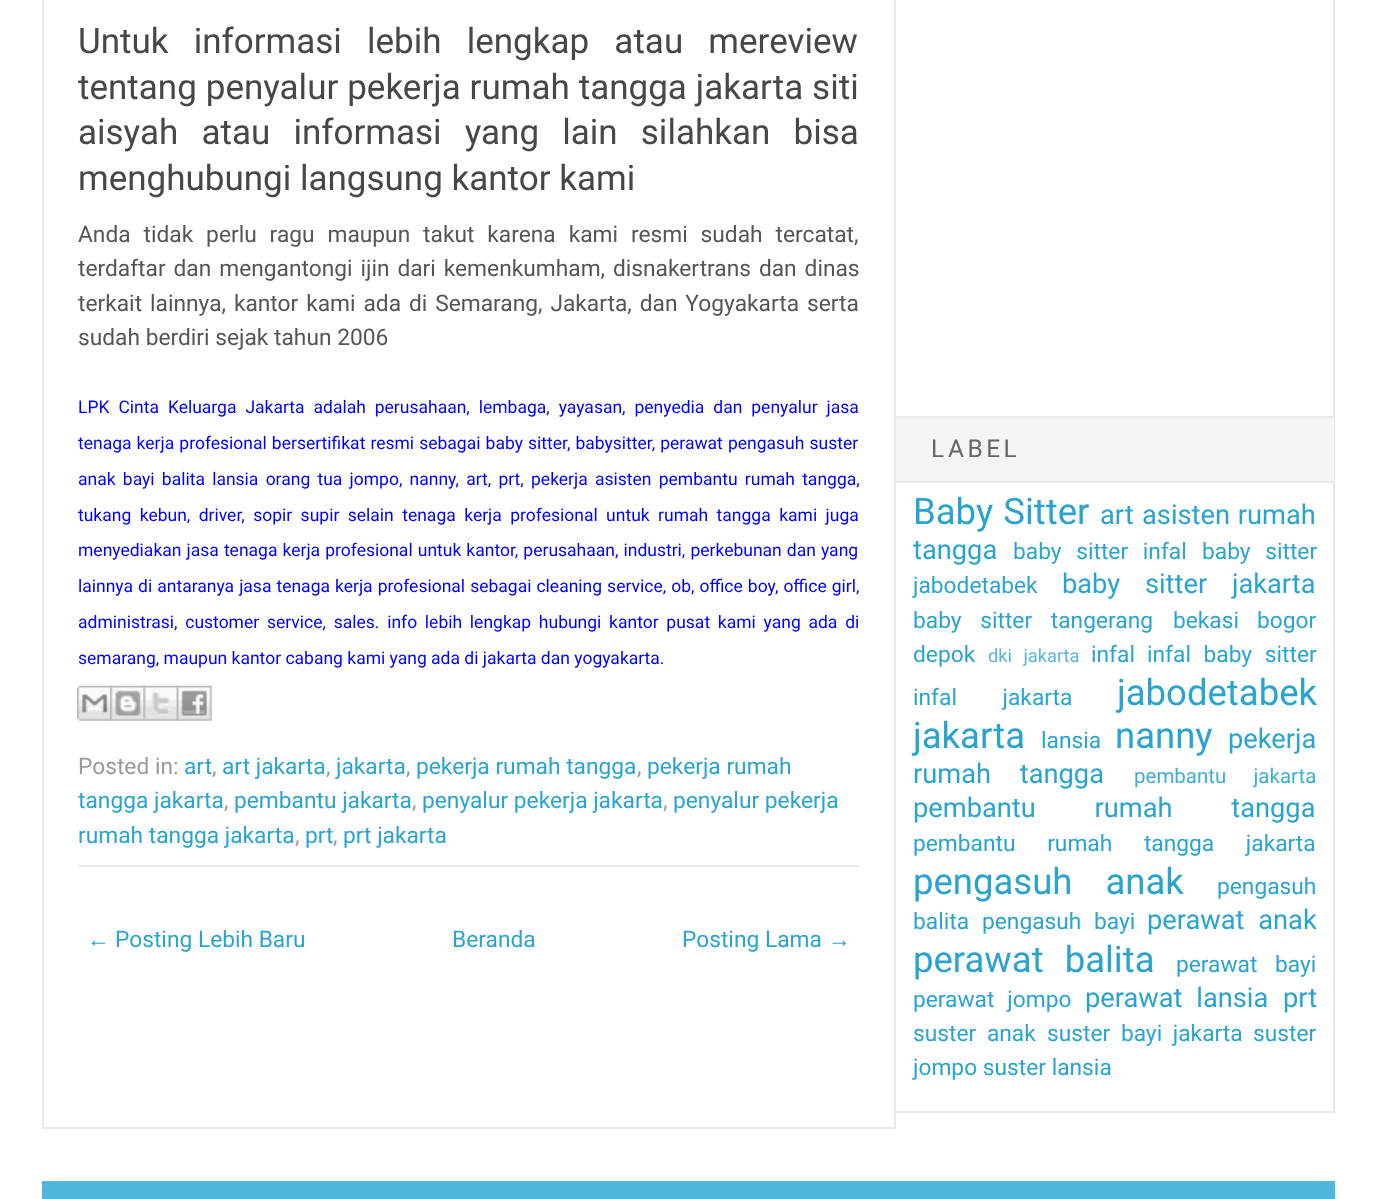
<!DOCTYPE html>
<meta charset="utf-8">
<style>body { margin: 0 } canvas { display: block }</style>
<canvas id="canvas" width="1377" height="1199"></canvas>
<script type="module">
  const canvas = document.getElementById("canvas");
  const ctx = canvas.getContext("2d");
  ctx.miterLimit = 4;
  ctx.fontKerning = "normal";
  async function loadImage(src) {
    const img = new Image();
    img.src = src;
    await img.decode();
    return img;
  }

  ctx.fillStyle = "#ffffff";
  ctx.fillRect(0, 0, 1377, 1199);
  ctx.strokeStyle = "#e9e9e9";
  ctx.lineWidth = 2;
  ctx.strokeRect(43, -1, 852, 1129);
  ctx.fillStyle = "#e9e9e9";
  ctx.fillRect(79, 865, 780, 2);
  ctx.wordSpacing = "16.5px";
  ctx.font = "35px Roboto";
  ctx.fillStyle = "#474747";
  ctx.fillText("Untuk informasi lebih lengkap atau mereview", 78, 53);
  ctx.wordSpacing = "0.25px";
  ctx.fillText("tentang penyalur pekerja rumah tangga jakarta siti", 78, 99);
  ctx.wordSpacing = "14.5px";
  ctx.fillText("aisyah atau informasi yang lain silahkan bisa", 78, 144);
  ctx.wordSpacing = "0px";
  ctx.fillText("menghubungi langsung kantor kami", 78, 190);
  ctx.wordSpacing = "7.25px";
  ctx.font = "22.75px Roboto";
  ctx.fillStyle = "#555555";
  ctx.fillText("Anda tidak perlu ragu maupun takut karena kami resmi sudah tercatat,", 78, 242);
  ctx.wordSpacing = "2.25px";
  ctx.fillText("terdaftar dan mengantongi ijin dari kemenkumham, disnakertrans dan dinas", 78, 276);
  ctx.fillText("terkait lainnya, kantor kami ada di Semarang, Jakarta, dan Yogyakarta serta", 78, 311);
  ctx.wordSpacing = "0px";
  ctx.fillText("sudah berdiri sejak tahun 2006", 78, 345);
  ctx.wordSpacing = "4.6px";
  ctx.font = "17.5px Roboto";
  ctx.fillStyle = "#0000ff";
  ctx.fillText("LPK Cinta Keluarga Jakarta adalah perusahaan, lembaga, yayasan, penyedia dan penyalur jasa", 78, 413);
  ctx.wordSpacing = "0.75px";
  ctx.fillText("tenaga kerja profesional bersertifikat resmi sebagai baby sitter, babysitter, perawat pengasuh suster", 78, 449);
  ctx.wordSpacing = "2.9px";
  ctx.fillText("anak bayi balita lansia orang tua jompo, nanny, art, prt, pekerja asisten pembantu rumah tangga,", 78, 485);
  ctx.wordSpacing = "4.1px";
  ctx.fillText("tukang kebun, driver, sopir supir selain tenaga kerja profesional untuk rumah tangga kami juga", 78, 521);
  ctx.wordSpacing = "0.75px";
  ctx.fillText("menyediakan jasa tenaga kerja profesional untuk kantor, perusahaan, industri, perkebunan dan yang", 78, 556);
  ctx.wordSpacing = "0.7px";
  ctx.fillText("lainnya di antaranya jasa tenaga kerja profesional sebagai cleaning service, ob, office boy, office girl,", 78, 592);
  ctx.wordSpacing = "3.4px";
  ctx.fillText("administrasi, customer service, sales. info lebih lengkap hubungi kantor pusat kami yang ada di", 78, 628);
  ctx.wordSpacing = "0px";
  ctx.fillText("semarang, maupun kantor cabang kami yang ada di jakarta dan yogyakarta.", 78, 664);
  ctx.drawImage(await loadImage("img1.png"), 77, 685, 35, 36);
  ctx.drawImage(await loadImage("img2.png"), 110, 685, 36, 36);
  ctx.drawImage(await loadImage("img3.png"), 143, 685, 36, 36);
  ctx.drawImage(await loadImage("img4.png"), 176, 685, 36, 36);
  ctx.font = "22.75px Roboto";
  ctx.fillStyle = "#999999";
  ctx.fillText("Posted in:", 78, 774);
  ctx.fillStyle = "#2aa4cf";
  ctx.fillText("art", 184, 774);
  ctx.fillStyle = "#999999";
  ctx.fillText(",", 212, 774);
  ctx.fillStyle = "#2aa4cf";
  ctx.fillText("art jakarta", 222, 774);
  ctx.fillStyle = "#999999";
  ctx.fillText(",", 326, 774);
  ctx.fillStyle = "#2aa4cf";
  ctx.fillText("jakarta", 336, 774);
  ctx.fillStyle = "#999999";
  ctx.fillText(",", 406, 774);
  ctx.fillStyle = "#2aa4cf";
  ctx.fillText("pekerja rumah tangga", 416, 774);
  ctx.fillStyle = "#999999";
  ctx.fillText(",", 637, 774);
  ctx.fillStyle = "#2aa4cf";
  ctx.fillText("pekerja rumah", 647, 774);
  ctx.fillText("tangga jakarta", 78, 808);
  ctx.fillStyle = "#999999";
  ctx.fillText(",", 224, 808);
  ctx.fillStyle = "#2aa4cf";
  ctx.fillText("pembantu jakarta", 234, 808);
  ctx.fillStyle = "#999999";
  ctx.fillText(",", 412, 808);
  ctx.fillStyle = "#2aa4cf";
  ctx.fillText("penyalur pekerja jakarta", 422, 808);
  ctx.fillStyle = "#999999";
  ctx.fillText(",", 663, 808);
  ctx.fillStyle = "#2aa4cf";
  ctx.fillText("penyalur pekerja", 673, 808);
  ctx.fillText("rumah tangga jakarta", 78, 843);
  ctx.fillStyle = "#999999";
  ctx.fillText(",", 295, 843);
  ctx.fillStyle = "#2aa4cf";
  ctx.fillText("prt", 305, 843);
  ctx.fillStyle = "#999999";
  ctx.fillText(",", 333, 843);
  ctx.fillStyle = "#2aa4cf";
  ctx.fillText("prt jakarta", 343, 843);
  ctx.font = "22.75px Liberation Sans";
  ctx.fillText("←", 87, 947);
  ctx.font = "22.75px Roboto";
  ctx.fillText("Posting Lebih Baru", 115, 947);
  ctx.fillText("Beranda", 452, 947);
  ctx.fillText("Posting Lama", 682, 947);
  ctx.font = "22.75px Liberation Sans";
  ctx.fillText("→", 828, 947);
  ctx.strokeRect(895, -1, 439, 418);
  ctx.strokeRect(895, 418, 439, 694);
  ctx.fillStyle = "#f4f4f4";
  ctx.fillRect(896, 418, 438, 63);
  ctx.fillStyle = "#e9e9e9";
  ctx.fillRect(896, 481, 438, 2);
  ctx.letterSpacing = "3.5px";
  ctx.font = "24.5px Roboto";
  ctx.fillStyle = "#666666";
  ctx.fillText("LABEL", 931, 457);
  ctx.letterSpacing = "0px";
  ctx.wordSpacing = "1px";
  ctx.font = "36.5px Roboto";
  ctx.fillStyle = "#2aa4cf";
  ctx.fillText("Baby Sitter", 913, 524);
  ctx.wordSpacing = "0px";
  ctx.font = "27.25px Roboto";
  ctx.fillText("art", 1100, 524);
  ctx.wordSpacing = "1px";
  ctx.fillText("asisten rumah", 1142, 524);
  ctx.wordSpacing = "0px";
  ctx.fillText("tangga", 913, 559);
  ctx.wordSpacing = "9px";
  ctx.font = "22.75px Roboto";
  ctx.fillText("baby sitter infal", 1013, 559);
  ctx.fillText("baby sitter", 1202, 559);
  ctx.wordSpacing = "0px";
  ctx.fillText("jabodetabek", 913, 593);
  ctx.wordSpacing = "18px";
  ctx.font = "27.25px Roboto";
  ctx.fillText("baby sitter jakarta", 1062, 593);
  ctx.wordSpacing = "13px";
  ctx.font = "22.75px Roboto";
  ctx.fillText("baby sitter tangerang", 913, 628);
  ctx.wordSpacing = "0px";
  ctx.fillText("bekasi", 1173, 628);
  ctx.fillText("bogor", 1257, 628);
  ctx.fillText("depok", 913, 662);
  ctx.wordSpacing = "7px";
  ctx.font = "18.25px Roboto";
  ctx.fillStyle = "#55b6d9";
  ctx.fillText("dki jakarta", 988, 662);
  ctx.wordSpacing = "0px";
  ctx.font = "22.75px Roboto";
  ctx.fillStyle = "#2aa4cf";
  ctx.fillText("infal", 1091, 662);
  ctx.wordSpacing = "7px";
  ctx.fillText("infal baby sitter", 1147, 662);
  ctx.wordSpacing = "40px";
  ctx.fillText("infal jakarta", 913, 705);
  ctx.wordSpacing = "0px";
  ctx.font = "36.5px Roboto";
  ctx.fillText("jabodetabek", 1117, 705);
  ctx.fillText("jakarta", 913, 748);
  ctx.font = "22.75px Roboto";
  ctx.fillText("lansia", 1041, 748);
  ctx.font = "36.5px Roboto";
  ctx.fillText("nanny", 1115, 748);
  ctx.font = "27.25px Roboto";
  ctx.fillText("pekerja", 1228, 748);
  ctx.wordSpacing = "22px";
  ctx.fillText("rumah tangga", 913, 783);
  ctx.font = "20.5px Roboto";
  ctx.fillStyle = "#3fadd4";
  ctx.fillText("pembantu jakarta", 1134, 783);
  ctx.wordSpacing = "52px";
  ctx.font = "27.25px Roboto";
  ctx.fillStyle = "#2aa4cf";
  ctx.fillText("pembantu rumah tangga", 913, 817);
  ctx.wordSpacing = "26px";
  ctx.font = "22.75px Roboto";
  ctx.fillText("pembantu rumah tangga jakarta", 913, 851);
  ctx.wordSpacing = "24px";
  ctx.font = "36.5px Roboto";
  ctx.fillText("pengasuh anak", 913, 894);
  ctx.wordSpacing = "0px";
  ctx.font = "22.75px Roboto";
  ctx.fillText("pengasuh", 1217, 894);
  ctx.fillText("balita", 913, 929);
  ctx.wordSpacing = "7px";
  ctx.fillText("pengasuh bayi", 982, 929);
  ctx.font = "27.25px Roboto";
  ctx.fillText("perawat anak", 1147, 929);
  ctx.wordSpacing = "12px";
  ctx.font = "36.5px Roboto";
  ctx.fillText("perawat balita", 913, 972);
  ctx.font = "22.75px Roboto";
  ctx.fillText("perawat bayi", 1176, 972);
  ctx.wordSpacing = "7.25px";
  ctx.fillText("perawat jompo", 913, 1007);
  ctx.wordSpacing = "7px";
  ctx.font = "27.25px Roboto";
  ctx.fillText("perawat lansia", 1085, 1007);
  ctx.wordSpacing = "0px";
  ctx.fillText("prt", 1283, 1007);
  ctx.wordSpacing = "5px";
  ctx.font = "22.75px Roboto";
  ctx.fillText("suster anak", 913, 1041);
  ctx.fillText("suster bayi jakarta", 1047, 1041);
  ctx.wordSpacing = "0px";
  ctx.fillText("suster", 1253, 1041);
  ctx.fillText("jompo suster lansia", 913, 1075);
  ctx.fillStyle = "rgba(0, 0, 0, 0.3)";
  ctx.filter = "blur(2px)";
  ctx.beginPath();
  ctx.rect(44, 1187, 1290, 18);
  ctx.fill();
  ctx.filter = "none";
  ctx.fillStyle = "#50b7dc";
  ctx.fillRect(42, 1181, 1293, 18);
</script>
